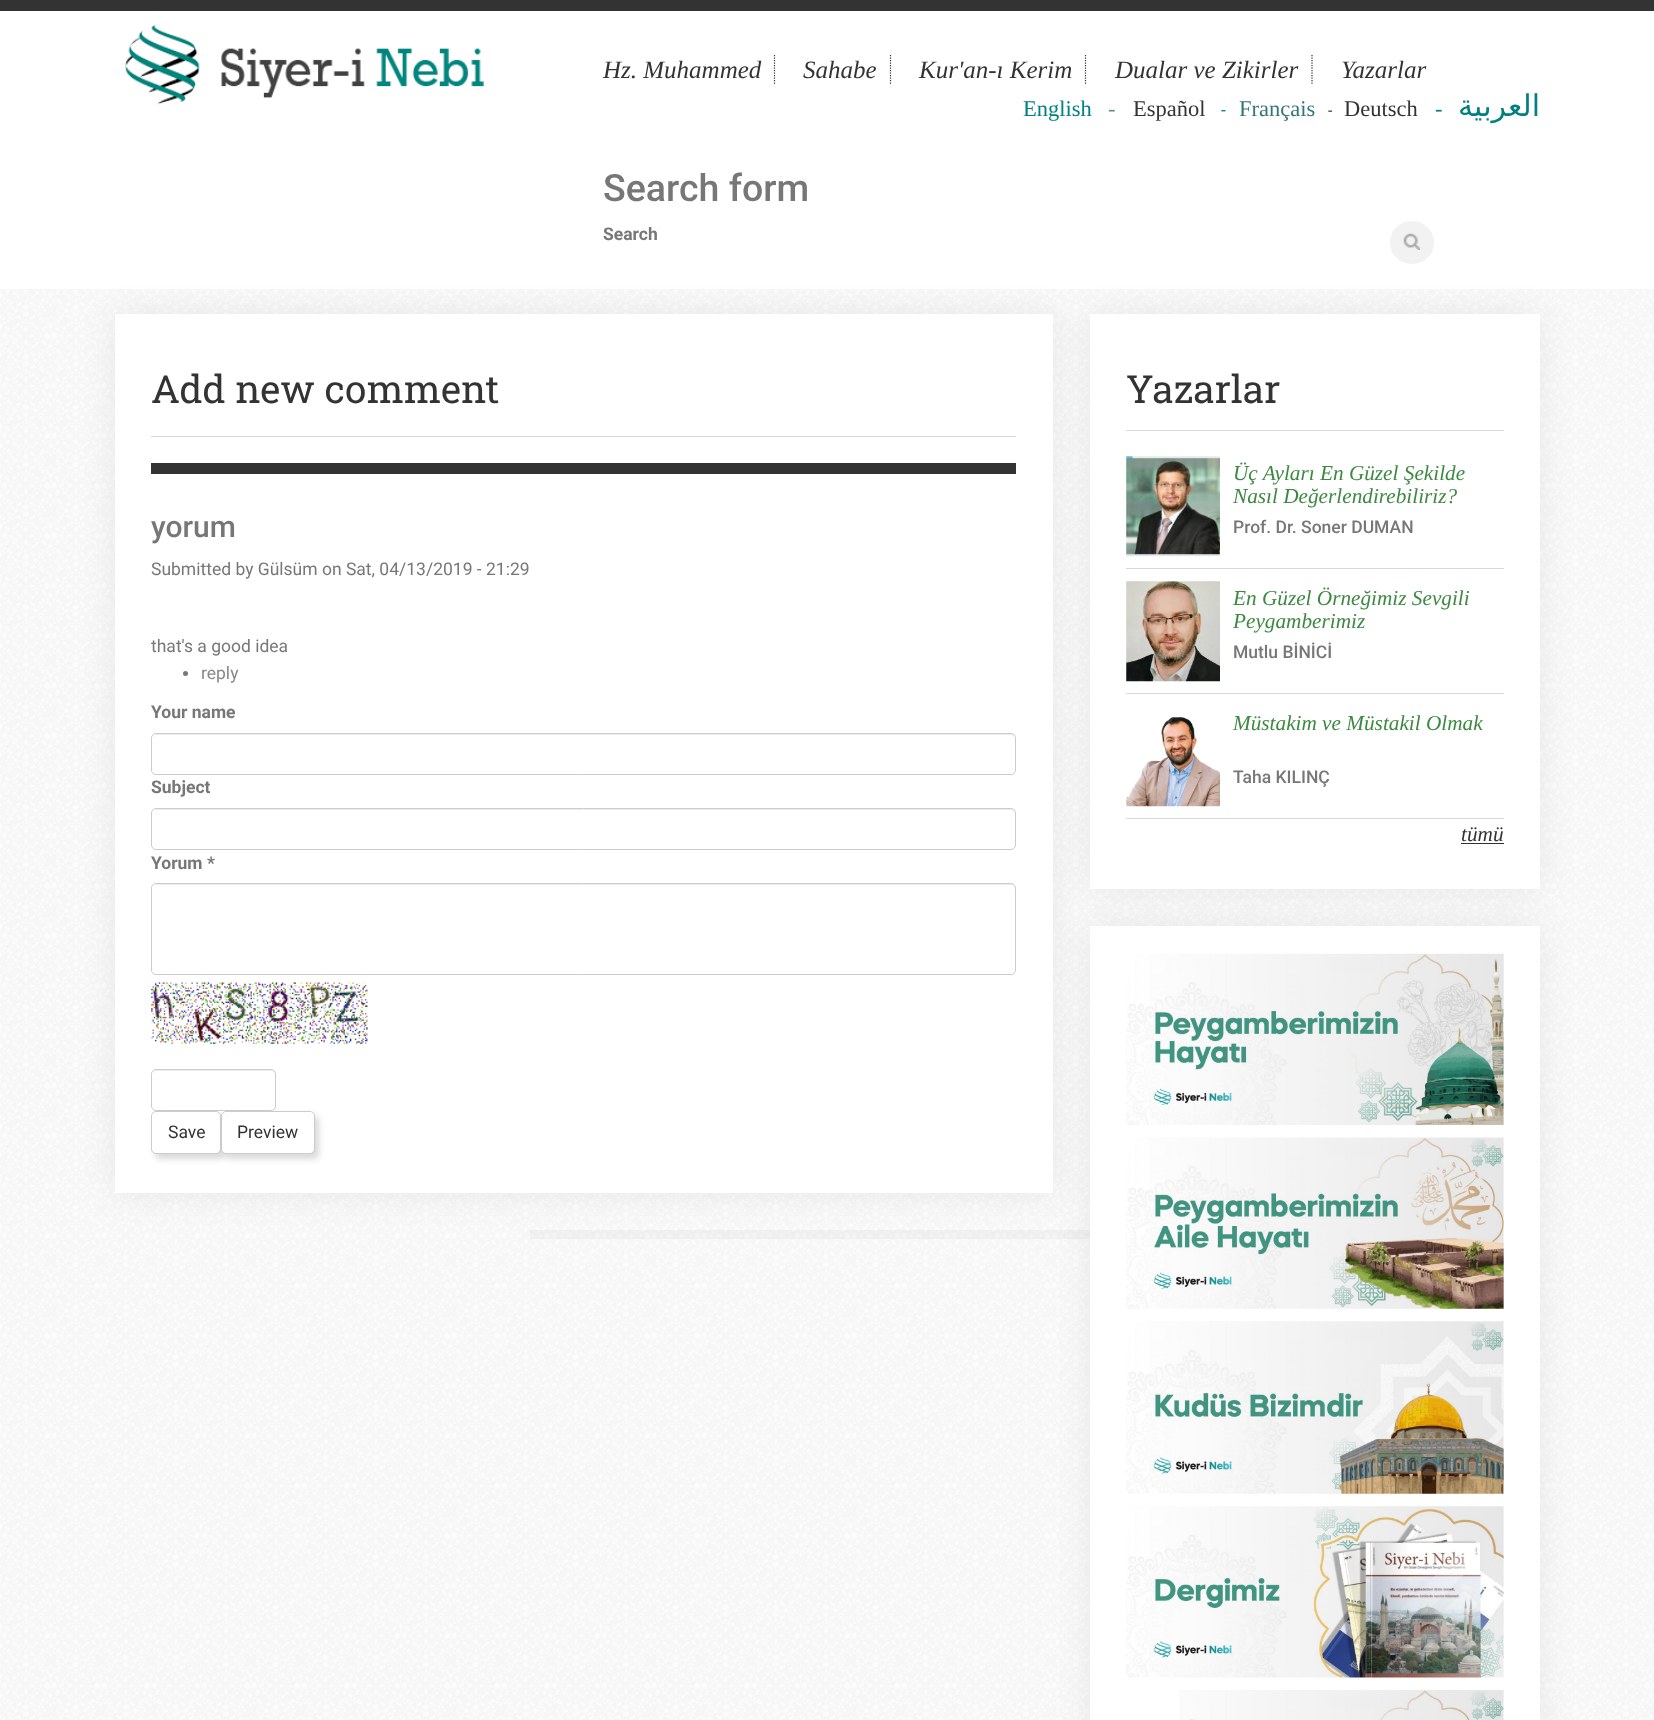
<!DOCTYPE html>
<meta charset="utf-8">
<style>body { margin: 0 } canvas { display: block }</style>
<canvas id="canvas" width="1654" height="1720"></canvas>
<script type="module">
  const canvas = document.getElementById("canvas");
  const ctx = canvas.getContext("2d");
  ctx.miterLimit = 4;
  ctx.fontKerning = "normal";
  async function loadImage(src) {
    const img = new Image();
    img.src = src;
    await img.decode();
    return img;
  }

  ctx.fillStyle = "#ffffff";
  ctx.fillRect(0, 0, 1654, 1720);
  ctx.drawImage(await loadImage("img1.png"), 0, 289, 1654, 1431);
  ctx.fillStyle = "#333333";
  ctx.fillRect(0, 0, 1654, 11);
  ctx.drawImage(await loadImage("img2.png"), 125, 24, 359, 81);
  ctx.beginPath();
  ctx.moveTo(774.5, 55);
  ctx.lineTo(774.5, 84);
  ctx.strokeStyle = "#333333";
  ctx.lineWidth = 1.2;
  ctx.setLineDash([1.25, 1.25]);
  ctx.stroke();
  ctx.font = "italic 25px Liberation Serif";
  ctx.fillText("Hz. Muhammed", 603, 78);
  ctx.beginPath();
  ctx.moveTo(890.5, 55);
  ctx.lineTo(890.5, 84);
  ctx.stroke();
  ctx.fillText("Sahabe", 803, 78);
  ctx.beginPath();
  ctx.moveTo(1085.5, 55);
  ctx.lineTo(1085.5, 84);
  ctx.stroke();
  ctx.fillText("Kur'an-ı Kerim", 919, 78);
  ctx.beginPath();
  ctx.moveTo(1312, 55);
  ctx.lineTo(1312, 84);
  ctx.stroke();
  ctx.fillText("Dualar ve Zikirler", 1115, 78);
  ctx.fillText("Yazarlar", 1341, 78);
  ctx.font = "22.5px Liberation Serif";
  ctx.fillStyle = "#008080";
  ctx.fillText("English", 1023, 116);
  ctx.fillStyle = "#6b9480";
  ctx.fillText("-", 1108, 116);
  ctx.fillStyle = "#333333";
  ctx.fillText("Español", 1133, 116);
  ctx.font = "17.5px Roboto";
  ctx.fillStyle = "#008080";
  ctx.fillText("-", 1221, 116);
  ctx.font = "22.5px Liberation Serif";
  ctx.fillStyle = "#33767a";
  ctx.fillText("Français", 1239, 116);
  ctx.font = "16px Roboto";
  ctx.fillStyle = "#333333";
  ctx.fillText("-", 1328, 116);
  ctx.font = "22.5px Liberation Serif";
  ctx.fillText("Deutsch", 1344, 116);
  ctx.fillStyle = "#008080";
  ctx.fillText("-", 1435, 116);
  ctx.direction = "rtl";
  ctx.font = "30px DejaVu Sans";
  ctx.fillText("العربية", 1540, 116);
  ctx.direction = "ltr";
  ctx.font = "500 37.5px Roboto";
  ctx.fillStyle = "#777777";
  ctx.fillText("Search form", 603, 201);
  ctx.font = "bold 17.5px Roboto";
  ctx.fillText("Search", 603, 240);
  ctx.fillStyle = "#f2f2f2";
  ctx.beginPath();
  ctx.roundRect(1390, 221, 44, 43, 21.5);
  ctx.fill();
  ctx.drawImage(await loadImage("img3.png"), 1403, 233, 17, 17);
  ctx.fillStyle = "rgba(0, 0, 0, 0.07)";
  ctx.filter = "blur(17px)";
  ctx.beginPath();
  ctx.rect(115, 314, 938, 879);
  ctx.fill();
  ctx.filter = "none";
  ctx.fillStyle = "#ffffff";
  ctx.fillRect(115, 314, 938, 879);
  ctx.fillStyle = "#d9d9d9";
  ctx.fillRect(151, 436, 865, 1);
  ctx.font = "38.75px Roboto Slab";
  ctx.fillStyle = "#333333";
  ctx.fillText("Add new comment", 151, 403);
  ctx.fillRect(151, 463, 865, 11);
  ctx.font = "500 30px Roboto";
  ctx.fillStyle = "#777777";
  ctx.fillText("yorum", 151, 537);
  ctx.font = "17.5px Roboto";
  ctx.fillText("Submitted by Gülsüm on Sat, 04/13/2019 - 21:29", 151, 575);
  ctx.fillStyle = "rgba(0, 0, 0, 0.03)";
  ctx.fillRect(530, 1230, 560, 9);
  ctx.fillStyle = "#777777";
  ctx.fillText("that's a good idea", 151, 652);
  ctx.beginPath();
  ctx.arc(185.5, 673.5, 2.5, 0, Math.PI * 2);
  ctx.fill();
  ctx.fillStyle = "#888888";
  ctx.fillText("reply", 201, 679);
  ctx.font = "bold 17.5px Roboto";
  ctx.fillStyle = "#777777";
  ctx.fillText("Your name", 151, 718);
  ctx.fillStyle = "#ececec";
  ctx.beginPath();
  ctx.moveTo(156, 735);
  ctx.lineTo(1011, 735);
  ctx.bezierCurveTo(1013, 735, 1015, 737, 1015, 739);
  ctx.lineTo(1015, 738);
  ctx.bezierCurveTo(1015, 736, 1013, 734, 1011, 734);
  ctx.lineTo(157, 734);
  ctx.bezierCurveTo(156, 734, 154, 735, 154, 736);
  ctx.closePath();
  ctx.fill();
  ctx.beginPath();
  ctx.roundRect(151.5, 733.5, 864, 41, 4.5);
  ctx.strokeStyle = "#cccccc";
  ctx.lineWidth = 1;
  ctx.setLineDash([]);
  ctx.stroke();
  ctx.fillStyle = "#777777";
  ctx.fillText("Subject", 151, 793);
  ctx.fillStyle = "#ececec";
  ctx.beginPath();
  ctx.moveTo(156, 810);
  ctx.lineTo(1011, 810);
  ctx.bezierCurveTo(1013, 810, 1015, 812, 1015, 814);
  ctx.lineTo(1015, 813);
  ctx.bezierCurveTo(1015, 811, 1013, 809, 1011, 809);
  ctx.lineTo(157, 809);
  ctx.bezierCurveTo(156, 809, 154, 810, 154, 811);
  ctx.closePath();
  ctx.fill();
  ctx.beginPath();
  ctx.roundRect(151.5, 808.5, 864, 41, 4.5);
  ctx.stroke();
  ctx.fillStyle = "#777777";
  ctx.fillText("Yorum *", 151, 869);
  ctx.fillStyle = "#ececec";
  ctx.beginPath();
  ctx.moveTo(156, 885);
  ctx.lineTo(1011, 885);
  ctx.bezierCurveTo(1013, 885, 1015, 887, 1015, 889);
  ctx.lineTo(1015, 888);
  ctx.bezierCurveTo(1015, 886, 1013, 884, 1011, 884);
  ctx.lineTo(157, 884);
  ctx.bezierCurveTo(156, 884, 154, 885, 154, 886);
  ctx.closePath();
  ctx.fill();
  ctx.beginPath();
  ctx.roundRect(151.5, 883.5, 864, 91, 4.5);
  ctx.stroke();
  ctx.drawImage(await loadImage("img4.png"), 151, 982, 217, 62);
  ctx.beginPath();
  ctx.moveTo(156, 1071);
  ctx.lineTo(271, 1071);
  ctx.bezierCurveTo(273, 1071, 275, 1073, 275, 1075);
  ctx.lineTo(274, 1071);
  ctx.lineTo(271, 1070);
  ctx.lineTo(156, 1070);
  ctx.bezierCurveTo(155, 1070, 154, 1071, 154, 1072);
  ctx.closePath();
  ctx.fill();
  ctx.beginPath();
  ctx.roundRect(151.5, 1069.5, 124, 41, 4.5);
  ctx.stroke();
  ctx.fillStyle = "rgba(0, 0, 0, 0.15)";
  ctx.filter = "blur(3px)";
  ctx.beginPath();
  ctx.roundRect(155, 1116, 70, 43, 5);
  ctx.fill();
  ctx.filter = "none";
  ctx.fillStyle = "#ffffff";
  ctx.beginPath();
  ctx.roundRect(151.5, 1111.5, 69, 42, 4.5);
  ctx.fill();
  ctx.stroke();
  ctx.font = "17.5px Roboto";
  ctx.fillStyle = "#333333";
  ctx.fillText("Save", 168, 1138);
  ctx.fillStyle = "rgba(0, 0, 0, 0.15)";
  ctx.filter = "blur(3px)";
  ctx.beginPath();
  ctx.roundRect(225, 1116, 94, 43, 5);
  ctx.fill();
  ctx.filter = "none";
  ctx.fillStyle = "#ffffff";
  ctx.beginPath();
  ctx.roundRect(221.5, 1111.5, 93, 42, 4.5);
  ctx.fill();
  ctx.stroke();
  ctx.fillStyle = "#333333";
  ctx.fillText("Preview", 237, 1138);
  ctx.fillStyle = "rgba(0, 0, 0, 0.07)";
  ctx.filter = "blur(17px)";
  ctx.beginPath();
  ctx.rect(1090, 314, 450, 575);
  ctx.fill();
  ctx.filter = "none";
  ctx.fillStyle = "#ffffff";
  ctx.fillRect(1090, 314, 450, 575);
  ctx.fillStyle = "#d9d9d9";
  ctx.fillRect(1126, 430, 378, 1);
  ctx.font = "38.75px Roboto Slab";
  ctx.fillStyle = "#333333";
  ctx.fillText("Yazarlar", 1126, 403);
  ctx.fillStyle = "#d9d9d9";
  ctx.fillRect(1126, 568, 378, 1);
  ctx.font = "italic 21.25px Liberation Serif";
  ctx.fillStyle = "#3d8941";
  ctx.fillText("Üç Ayları En Güzel Şekilde", 1233, 480);
  ctx.fillText("Nasıl Değerlendirebiliriz?", 1233, 503);
  ctx.drawImage(await loadImage("img5.png"), 1126, 456, 94, 101);
  ctx.font = "500 17.5px Roboto";
  ctx.fillStyle = "#777777";
  ctx.fillText("Prof. Dr. Soner DUMAN", 1233, 533);
  ctx.fillStyle = "#d9d9d9";
  ctx.fillRect(1126, 693, 378, 1);
  ctx.font = "italic 21.25px Liberation Serif";
  ctx.fillStyle = "#3d8941";
  ctx.fillText("En Güzel Örneğimiz Sevgili", 1233, 605);
  ctx.fillText("Peygamberimiz", 1233, 628);
  ctx.drawImage(await loadImage("img6.png"), 1126, 581, 94, 101);
  ctx.font = "500 17.5px Roboto";
  ctx.fillStyle = "#777777";
  ctx.fillText("Mutlu BİNİCİ", 1233, 658);
  ctx.fillStyle = "#d9d9d9";
  ctx.fillRect(1126, 818, 378, 1);
  ctx.font = "italic 21.25px Liberation Serif";
  ctx.fillStyle = "#3d8941";
  ctx.fillText("Müstakim ve Müstakil Olmak", 1233, 730);
  ctx.drawImage(await loadImage("img7.png"), 1126, 717, 94, 90);
  ctx.font = "500 17.5px Roboto";
  ctx.fillStyle = "#777777";
  ctx.fillText("Taha KILINÇ", 1233, 783);
  ctx.font = "italic 21.25px Liberation Serif";
  ctx.fillStyle = "#333333";
  ctx.fillText("tümü", 1461, 841);
  ctx.fillStyle = "#323232";
  ctx.fillRect(1461, 843, 43, 1);
  ctx.fillStyle = "rgba(0, 0, 0, 0.07)";
  ctx.filter = "blur(17px)";
  ctx.beginPath();
  ctx.rect(1090, 926, 450, 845);
  ctx.fill();
  ctx.filter = "none";
  ctx.fillStyle = "#ffffff";
  ctx.fillRect(1090, 926, 450, 794);
  ctx.drawImage(await loadImage("img8.png"), 1126, 953, 378, 172);
  ctx.drawImage(await loadImage("img9.png"), 1126, 1137, 378, 172);
  ctx.drawImage(await loadImage("img10.png"), 1126, 1321, 378, 173);
  ctx.drawImage(await loadImage("img11.png"), 1126, 1506, 378, 172);
  ctx.drawImage(await loadImage("img12.png"), 1179, 1690, 325, 30);
</script>
